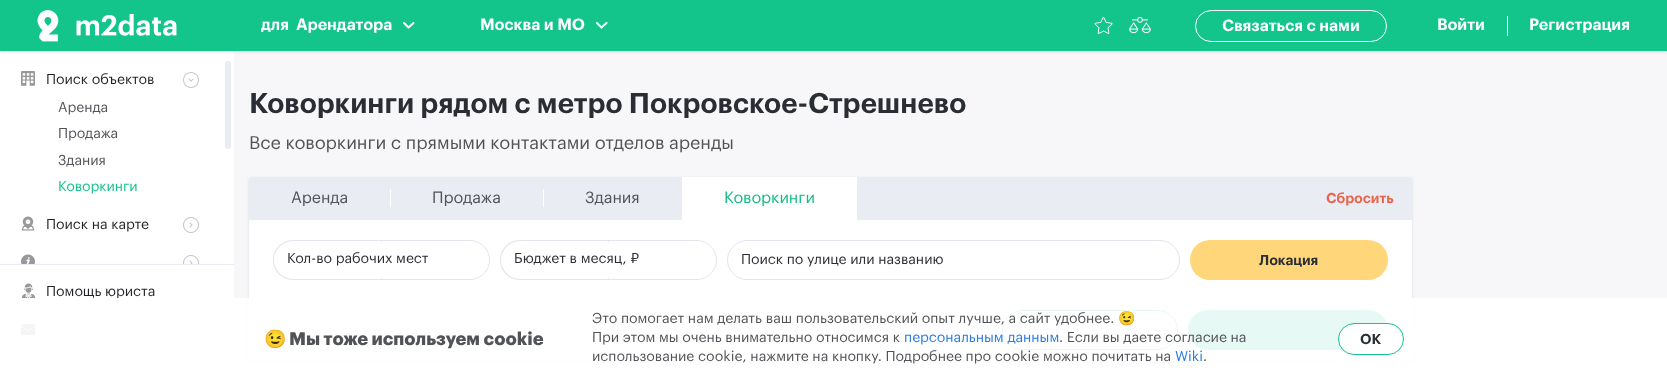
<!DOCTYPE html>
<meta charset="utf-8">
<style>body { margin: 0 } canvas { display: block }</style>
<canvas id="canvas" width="1667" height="378"></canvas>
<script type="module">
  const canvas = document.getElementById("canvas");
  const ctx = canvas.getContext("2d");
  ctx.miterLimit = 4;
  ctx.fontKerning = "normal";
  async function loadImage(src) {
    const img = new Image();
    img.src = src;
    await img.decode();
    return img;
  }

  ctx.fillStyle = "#ffffff";
  ctx.fillRect(0, 0, 1667, 378);
  ctx.fillStyle = "#f7f7fa";
  ctx.fillRect(234, 51, 1433, 327);
  ctx.fillStyle = "rgba(0, 0, 0, 0.1)";
  ctx.filter = "blur(1.5px)";
  ctx.beginPath();
  ctx.rect(0, 1, 1667, 51);
  ctx.fill();
  ctx.filter = "none";
  ctx.fillStyle = "#13c48b";
  ctx.fillRect(0, 0, 1667, 51);
  ctx.drawImage(await loadImage("img1.png"), 37, 10, 140, 32);
  ctx.font = "600 16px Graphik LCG";
  ctx.fillStyle = "#ffffff";
  ctx.fillText("для  Арендатора", 261, 30);
  ctx.beginPath();
  ctx.moveTo(404, 23);
  ctx.lineTo(408.5, 27.5);
  ctx.lineTo(413.5, 23);
  ctx.strokeStyle = "#ffffff";
  ctx.lineWidth = 2;
  ctx.lineCap = "round";
  ctx.lineJoin = "round";
  ctx.stroke();
  ctx.fillText("Москва и МО", 480, 30);
  ctx.beginPath();
  ctx.moveTo(597, 23);
  ctx.lineTo(601.5, 27.5);
  ctx.lineTo(606.5, 23);
  ctx.stroke();
  ctx.drawImage(await loadImage("img2.png"), 1094, 17, 19, 17);
  ctx.drawImage(await loadImage("img3.png"), 1129, 17, 22, 17);
  ctx.beginPath();
  ctx.roundRect(1195.5, 10.5, 191, 31, 15.5);
  ctx.lineWidth = 1;
  ctx.lineJoin = "miter";
  ctx.stroke();
  ctx.fillText("Связаться с нами", 1222, 31);
  ctx.fillText("Войти", 1437, 30);
  ctx.fillRect(1507, 16, 1, 20);
  ctx.fillText("Регистрация", 1529, 30);
  ctx.drawImage(await loadImage("img4.png"), 21, 71, 14, 15);
  ctx.font = "14px Graphik LCG";
  ctx.fillStyle = "#1f2227";
  ctx.fillText("Поиск объектов", 46, 84);
  ctx.drawImage(await loadImage("img5.png"), 183, 72, 16, 16);
  ctx.fillStyle = "#515357";
  ctx.fillText("Аренда", 58, 112);
  ctx.fillText("Продажа", 58, 138);
  ctx.fillText("Здания", 58, 165);
  ctx.fillStyle = "#13c48b";
  ctx.fillText("Коворкинги", 58, 191);
  ctx.drawImage(await loadImage("img6.png"), 21, 216, 14, 15);
  ctx.fillStyle = "#1f2227";
  ctx.fillText("Поиск на карте", 46, 229);
  ctx.drawImage(await loadImage("img7.png"), 183, 217, 16, 16);
  ctx.drawImage(await loadImage("img8.png"), 21, 254, 14, 10);
  ctx.drawImage(await loadImage("img9.png"), 183, 255, 16, 9);
  ctx.fillStyle = "#e9ecf2";
  ctx.beginPath();
  ctx.roundRect(225, 61, 6, 88, 3);
  ctx.fill();
  ctx.fillRect(0, 264, 234, 1);
  ctx.drawImage(await loadImage("img10.png"), 21, 283, 15, 16);
  ctx.fillStyle = "#1f2227";
  ctx.fillText("Помощь юриста", 46, 296);
  ctx.drawImage(await loadImage("img11.png"), 21, 324, 14, 11);
  ctx.font = "600 28px Graphik LCG";
  ctx.fillStyle = "#2a2d33";
  ctx.fillText("Коворкинги рядом с метро Покровское-Стрешнево", 249, 113);
  ctx.font = "18px Graphik LCG";
  ctx.fillStyle = "#515357";
  ctx.fillText("Все коворкинги с прямыми контактами отделов аренды", 249, 149);
  ctx.fillStyle = "rgba(0, 0, 0, 0.1)";
  ctx.filter = "blur(1.5px)";
  ctx.beginPath();
  ctx.roundRect(249, 178, 1163, 184, 3);
  ctx.fill();
  ctx.filter = "none";
  ctx.fillStyle = "#e9ecf2";
  ctx.beginPath();
  ctx.roundRect(249, 177, 1163, 43, [3, 3, 0, 0]);
  ctx.fill();
  ctx.font = "16px Graphik LCG";
  ctx.fillStyle = "#515357";
  ctx.fillText("Аренда", 291, 203);
  ctx.fillStyle = "#ffffff";
  ctx.fillRect(390, 189, 1, 18);
  ctx.fillStyle = "#515357";
  ctx.fillText("Продажа", 432, 203);
  ctx.fillStyle = "#ffffff";
  ctx.fillRect(543, 189, 1, 18);
  ctx.fillStyle = "#515357";
  ctx.fillText("Здания", 585, 203);
  ctx.fillStyle = "#ffffff";
  ctx.fillRect(682, 177, 175, 43);
  ctx.fillStyle = "#13bc86";
  ctx.fillText("Коворкинги", 724, 203);
  ctx.font = "600 14px Graphik LCG";
  ctx.fillStyle = "#ea654d";
  ctx.fillText("Сбросить", 1326, 203);
  ctx.fillStyle = "#ffffff";
  ctx.fillRect(249, 220, 1163, 80);
  ctx.fillStyle = "#e2e5eb";
  ctx.beginPath();
  ctx.moveTo(293, 240);
  ctx.lineTo(382, 240);
  ctx.lineTo(382, 280);
  ctx.lineTo(293, 280);
  ctx.bezierCurveTo(282, 280, 273, 271, 273, 260);
  ctx.bezierCurveTo(273, 249, 282, 240, 293, 240);
  ctx.closePath();
  ctx.moveTo(293, 241);
  ctx.lineTo(382, 241);
  ctx.lineTo(382, 279);
  ctx.lineTo(293, 279);
  ctx.bezierCurveTo(283, 279, 274, 270, 274, 260);
  ctx.bezierCurveTo(274, 250, 283, 241, 293, 241);
  ctx.closePath();
  ctx.fill("evenodd");
  ctx.fillStyle = "#ffffff";
  ctx.beginPath();
  ctx.roundRect(381.5, 240.5, 108, 39, [0, 19.5, 19.5, 0]);
  ctx.fill();
  ctx.strokeStyle = "#e2e5eb";
  ctx.stroke();
  ctx.beginPath();
  ctx.roundRect(284, 242, 195, 36, 8);
  ctx.fill();
  ctx.font = "14px Graphik LCG";
  ctx.fillStyle = "#2a2d33";
  ctx.fillText("Кол-во рабочих мест", 287, 263);
  ctx.fillStyle = "#e2e5eb";
  ctx.beginPath();
  ctx.moveTo(520, 240);
  ctx.lineTo(609, 240);
  ctx.lineTo(609, 280);
  ctx.lineTo(520, 280);
  ctx.bezierCurveTo(509, 280, 500, 271, 500, 260);
  ctx.bezierCurveTo(500, 249, 509, 240, 520, 240);
  ctx.closePath();
  ctx.moveTo(520, 241);
  ctx.lineTo(609, 241);
  ctx.lineTo(609, 279);
  ctx.lineTo(520, 279);
  ctx.bezierCurveTo(510, 279, 501, 270, 501, 260);
  ctx.bezierCurveTo(501, 250, 510, 241, 520, 241);
  ctx.closePath();
  ctx.fill("evenodd");
  ctx.fillStyle = "#ffffff";
  ctx.beginPath();
  ctx.roundRect(608.5, 240.5, 108, 39, [0, 19.5, 19.5, 0]);
  ctx.fill();
  ctx.stroke();
  ctx.beginPath();
  ctx.roundRect(511, 242, 195, 36, 8);
  ctx.fill();
  ctx.fillStyle = "#2a2d33";
  ctx.fillText("Бюджет в месяц, ₽", 514, 263);
  ctx.beginPath();
  ctx.roundRect(727.5, 240.5, 452, 39, 19.5);
  ctx.stroke();
  ctx.fillText("Поиск по улице или названию", 741, 264);
  ctx.fillStyle = "#ffd67a";
  ctx.beginPath();
  ctx.roundRect(1190, 240, 198, 40, 20);
  ctx.fill();
  ctx.font = "600 14px Graphik LCG";
  ctx.fillStyle = "#2a2d33";
  ctx.fillText("Локация", 1259, 265);
  ctx.fillStyle = "#f7f7fa";
  ctx.beginPath();
  ctx.roundRect(249, 300, 1163, 61, [0, 0, 3, 3]);
  ctx.fill();
  ctx.fillStyle = "#ffffff";
  ctx.beginPath();
  ctx.roundRect(273.5, 310.5, 175, 39, 19.5);
  ctx.fill();
  ctx.stroke();
  ctx.beginPath();
  ctx.roundRect(1002.5, 310.5, 175, 39, 19.5);
  ctx.fill();
  ctx.strokeStyle = "#13c48b";
  ctx.stroke();
  ctx.fillStyle = "#13c48b";
  ctx.beginPath();
  ctx.roundRect(1188, 310, 200, 40, 20);
  ctx.fill();
  ctx.fillStyle = "rgba(255, 255, 255, 0.9)";
  ctx.fillRect(21, 298, 1646, 80);
  ctx.font = "bold 18px Noto Color Emoji";
  ctx.fillStyle = "#515357";
  ctx.fillText("😉", 264, 345);
  ctx.font = "bold 18px Graphik LCG";
  ctx.fillText("Мы тоже используем cookie", 289, 345);
  ctx.font = "14px Graphik LCG";
  ctx.fillText("Это помогает нам делать ваш пользовательский опыт лучше, а сайт удобнее.", 592, 323);
  ctx.font = "14px Noto Color Emoji";
  ctx.fillText("😉", 1118, 323);
  ctx.font = "14px Graphik LCG";
  ctx.fillText("При этом мы очень внимательно относимся к", 592, 342);
  ctx.fillStyle = "#2a7bdf";
  ctx.fillText("персональным данным", 904, 342);
  ctx.fillStyle = "#515357";
  ctx.fillText(". Если вы даете согласие на", 1059, 342);
  ctx.fillText("использование cookie, нажмите на кнопку. Подробнее про cookie можно почитать на", 592, 361);
  ctx.fillStyle = "#2a7bdf";
  ctx.fillText("Wiki", 1175, 361);
  ctx.fillStyle = "#515357";
  ctx.fillText(".", 1203, 361);
  ctx.fillStyle = "#ffffff";
  ctx.beginPath();
  ctx.roundRect(1338.5, 323.5, 65, 31, 15.5);
  ctx.fill();
  ctx.stroke();
  ctx.font = "600 14px Graphik LCG";
  ctx.fillStyle = "#2a2d33";
  ctx.fillText("OK", 1360, 344);
</script>
